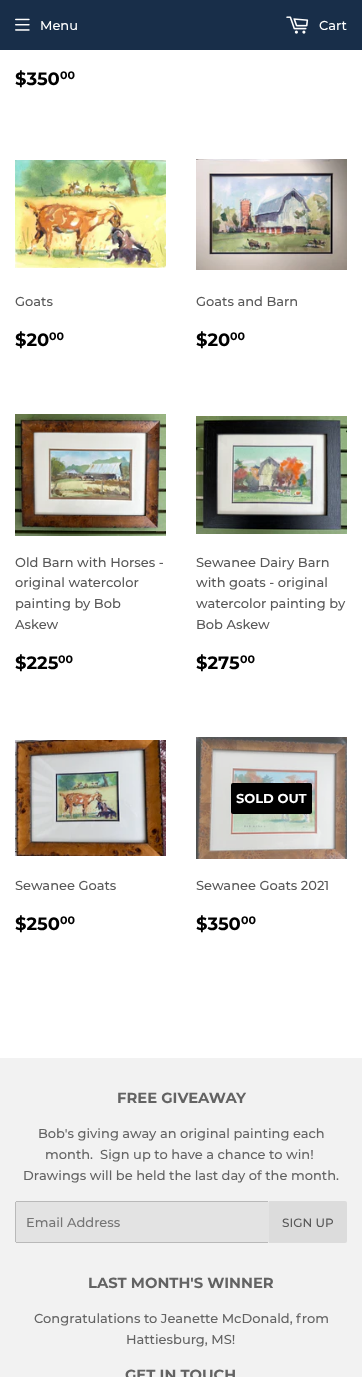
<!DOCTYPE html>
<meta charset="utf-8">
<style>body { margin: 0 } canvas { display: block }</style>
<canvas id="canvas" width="362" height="1377"></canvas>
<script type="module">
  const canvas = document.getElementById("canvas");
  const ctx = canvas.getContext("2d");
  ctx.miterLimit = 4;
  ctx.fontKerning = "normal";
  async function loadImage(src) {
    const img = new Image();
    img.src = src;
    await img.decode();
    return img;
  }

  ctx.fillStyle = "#ffffff";
  ctx.fillRect(0, 0, 362, 1377);
  ctx.fillStyle = "#182e49";
  ctx.fillRect(0, 0, 362, 50);
  ctx.drawImage(await loadImage("img1.png"), 15, 18, 15, 13);
  ctx.font = "500 13px Montserrat";
  ctx.fillStyle = "#ffffff";
  ctx.fillText("Menu", 40, 30);
  ctx.drawImage(await loadImage("img2.png"), 286, 16, 23, 18);
  ctx.fillText("Cart", 319, 30);
  ctx.font = "bold 18px Montserrat";
  ctx.fillStyle = "#000000";
  ctx.fillText("$350", 15, 85);
  ctx.font = "bold 11px Montserrat";
  ctx.fillText("00", 60, 79);
  ctx.drawImage(await loadImage("img3.png"), 15, 160, 151, 108);
  ctx.font = "500 13px Montserrat";
  ctx.fillStyle = "#585858";
  ctx.fillText("Goats", 15, 306);
  ctx.font = "bold 18px Montserrat";
  ctx.fillStyle = "#000000";
  ctx.fillText("$20", 15, 346);
  ctx.font = "bold 11px Montserrat";
  ctx.fillText("00", 49, 340);
  ctx.drawImage(await loadImage("img4.png"), 196, 159, 151, 111);
  ctx.font = "500 13px Montserrat";
  ctx.fillStyle = "#585858";
  ctx.fillText("Goats and Barn", 196, 306);
  ctx.font = "bold 18px Montserrat";
  ctx.fillStyle = "#000000";
  ctx.fillText("$20", 196, 346);
  ctx.font = "bold 11px Montserrat";
  ctx.fillText("00", 230, 340);
  ctx.drawImage(await loadImage("img5.png"), 15, 414, 151, 122);
  ctx.font = "500 13px Montserrat";
  ctx.fillStyle = "#585858";
  ctx.fillText("Old Barn with Horses -", 15, 567);
  ctx.fillText("original watercolor", 15, 587);
  ctx.fillText("painting by Bob", 15, 608);
  ctx.fillText("Askew", 15, 629);
  ctx.font = "bold 18px Montserrat";
  ctx.fillStyle = "#000000";
  ctx.fillText("$225", 15, 669);
  ctx.font = "bold 11px Montserrat";
  ctx.fillText("00", 58, 663);
  ctx.drawImage(await loadImage("img6.png"), 196, 416, 151, 118);
  ctx.font = "500 13px Montserrat";
  ctx.fillStyle = "#585858";
  ctx.fillText("Sewanee Dairy Barn", 196, 567);
  ctx.fillText("with goats - original", 196, 587);
  ctx.fillText("watercolor painting by", 196, 608);
  ctx.fillText("Bob Askew", 196, 629);
  ctx.font = "bold 18px Montserrat";
  ctx.fillStyle = "#000000";
  ctx.fillText("$275", 196, 669);
  ctx.font = "bold 11px Montserrat";
  ctx.fillText("00", 240, 663);
  ctx.drawImage(await loadImage("img7.png"), 15, 740, 151, 116);
  ctx.font = "500 13px Montserrat";
  ctx.fillStyle = "#585858";
  ctx.fillText("Sewanee Goats", 15, 890);
  ctx.font = "bold 18px Montserrat";
  ctx.fillStyle = "#000000";
  ctx.fillText("$250", 15, 930);
  ctx.font = "bold 11px Montserrat";
  ctx.fillText("00", 60, 924);
  ctx.drawImage(await loadImage("img8.png"), 196, 737, 151, 122);
  ctx.beginPath();
  ctx.roundRect(231, 783, 81, 31, 2);
  ctx.fill();
  ctx.font = "bold 13px Montserrat";
  ctx.fillStyle = "#ffffff";
  ctx.fillText("SOLD OUT", 236, 803);
  ctx.font = "500 13px Montserrat";
  ctx.fillStyle = "#585858";
  ctx.fillText("Sewanee Goats 2021", 196, 890);
  ctx.font = "bold 18px Montserrat";
  ctx.fillStyle = "#000000";
  ctx.fillText("$350", 196, 930);
  ctx.font = "bold 11px Montserrat";
  ctx.fillText("00", 241, 924);
  ctx.fillStyle = "#f2f2f2";
  ctx.fillRect(0, 1058, 362, 319);
  ctx.font = "bold 14.75px Montserrat";
  ctx.fillStyle = "#636363";
  ctx.fillText("FREE GIVEAWAY", 117, 1103);
  ctx.font = "500 13px Montserrat";
  ctx.fillText("Bob's giving away an original painting each", 38, 1138);
  ctx.fillText("month.  Sign up to have a chance to win!", 45, 1159);
  ctx.fillText("Drawings will be held the last day of the month.", 23, 1180);
  ctx.fillStyle = "#e3e3e3";
  ctx.beginPath();
  ctx.roundRect(15, 1201, 254, 42, 2);
  ctx.fill();
  ctx.fillStyle = "#b9b9b9";
  ctx.fillRect(16, 1201, 252, 1);
  ctx.fillRect(16, 1242, 252, 1);
  ctx.fillRect(15, 1202, 1, 40);
  ctx.fillStyle = "#757575";
  ctx.fillText("Email Address", 26, 1227);
  ctx.fillStyle = "#dcdcdc";
  ctx.beginPath();
  ctx.roundRect(269, 1201, 78, 42, [0, 2, 2, 0]);
  ctx.fill();
  ctx.font = "500 12px Montserrat";
  ctx.fillStyle = "#585858";
  ctx.fillText("SIGN UP", 282, 1227);
  ctx.font = "bold 14.75px Montserrat";
  ctx.fillStyle = "#636363";
  ctx.fillText("LAST MONTH'S WINNER", 88, 1288);
  ctx.font = "500 13px Montserrat";
  ctx.fillText("Congratulations to Jeanette McDonald, from", 34, 1323);
  ctx.fillText("Hattiesburg, MS!", 126, 1344);
  ctx.font = "bold 14.75px Montserrat";
  ctx.fillText("GET IN TOUCH", 125, 1380);
</script>
